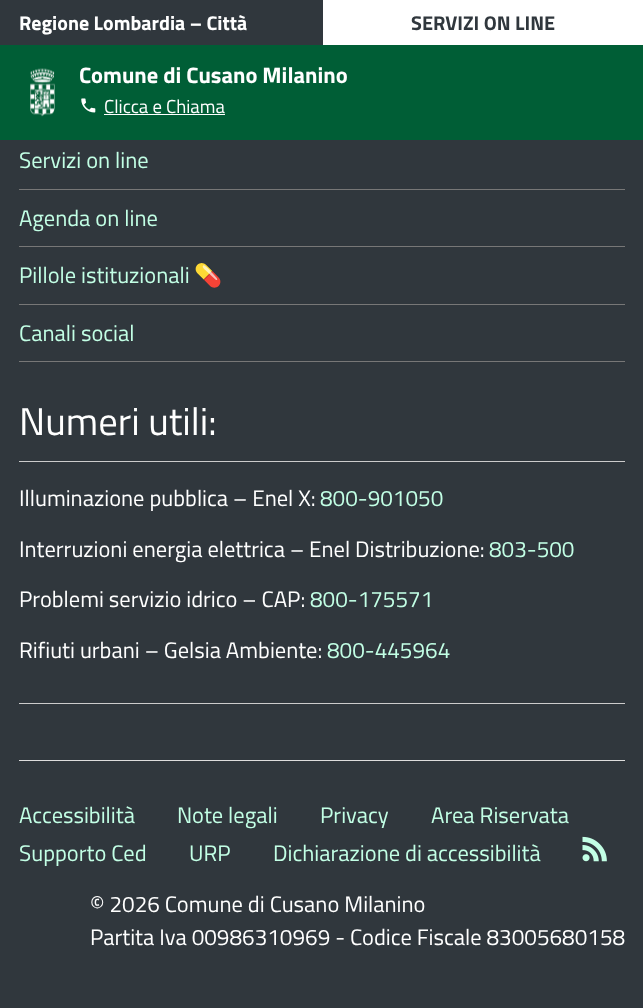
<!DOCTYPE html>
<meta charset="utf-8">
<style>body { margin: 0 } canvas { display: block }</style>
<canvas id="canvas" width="643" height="1008"></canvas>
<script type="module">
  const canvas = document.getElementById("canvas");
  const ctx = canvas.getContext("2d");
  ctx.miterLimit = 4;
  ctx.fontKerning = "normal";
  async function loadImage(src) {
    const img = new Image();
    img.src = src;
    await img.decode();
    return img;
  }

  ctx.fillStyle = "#30373d";
  ctx.fillRect(0, 0, 643, 1008);
  ctx.font = "bold 20px Titillium Web";
  ctx.fillStyle = "#ffffff";
  ctx.fillText("Regione Lombardia – Città", 19, 30);
  ctx.fillRect(323, 0, 320, 45);
  ctx.fillStyle = "#30373d";
  ctx.fillText("SERVIZI ON LINE", 411, 30);
  ctx.fillStyle = "#005e36";
  ctx.fillRect(0, 45, 643, 95);
  ctx.drawImage(await loadImage("img1.png"), 30, 68, 25, 49);
  ctx.font = "bold 22.5px Titillium Web";
  ctx.fillStyle = "#ffffff";
  ctx.fillText("Comune di Cusano Milanino", 79, 83);
  ctx.drawImage(await loadImage("img2.png"), 81, 98, 15, 15);
  ctx.font = "18.75px Titillium Web";
  ctx.fillText("Clicca e Chiama", 104, 113);
  ctx.fillRect(104, 114, 121, 1);
  ctx.fillStyle = "#777777";
  ctx.fillRect(19, 189, 606, 1);
  ctx.font = "22.5px Titillium Web";
  ctx.fillStyle = "#c2ffe5";
  ctx.fillText("Servizi on line", 19, 168);
  ctx.fillStyle = "#777777";
  ctx.fillRect(19, 246, 606, 1);
  ctx.fillStyle = "#c2ffe5";
  ctx.fillText("Agenda on line", 19, 226);
  ctx.fillStyle = "#777777";
  ctx.fillRect(19, 304, 606, 1);
  ctx.fillStyle = "#c2ffe5";
  ctx.fillText("Pillole istituzionali", 19, 283);
  ctx.font = "22.5px Noto Color Emoji";
  ctx.fillText("💊", 194, 283);
  ctx.fillStyle = "#777777";
  ctx.fillRect(19, 361, 606, 1);
  ctx.font = "22.5px Titillium Web";
  ctx.fillStyle = "#c2ffe5";
  ctx.fillText("Canali social", 19, 341);
  ctx.fillStyle = "#cccccc";
  ctx.fillRect(19, 461, 606, 1);
  ctx.font = "38.75px Titillium Web";
  ctx.fillStyle = "#ffffff";
  ctx.fillText("Numeri utili:", 19, 435);
  ctx.font = "22.5px Titillium Web";
  ctx.fillText("Illuminazione pubblica – Enel X:", 19, 506);
  ctx.fillStyle = "#c2ffe5";
  ctx.fillText("800-901050", 320, 506);
  ctx.fillStyle = "#ffffff";
  ctx.fillText("Interruzioni energia elettrica – Enel Distribuzione:", 19, 557);
  ctx.fillStyle = "#c2ffe5";
  ctx.fillText("803-500", 489, 557);
  ctx.fillStyle = "#ffffff";
  ctx.fillText("Problemi servizio idrico – CAP:", 19, 607);
  ctx.fillStyle = "#c2ffe5";
  ctx.fillText("800-175571", 310, 607);
  ctx.fillStyle = "#ffffff";
  ctx.fillText("Rifiuti urbani – Gelsia Ambiente:", 19, 658);
  ctx.fillStyle = "#c2ffe5";
  ctx.fillText("800-445964", 327, 658);
  ctx.fillStyle = "#cccccc";
  ctx.fillRect(19, 703, 606, 1);
  ctx.fillStyle = "#dddddd";
  ctx.fillRect(19, 760, 606, 1);
  ctx.fillStyle = "#c2ffe5";
  ctx.fillText("Accessibilità", 19, 823);
  ctx.fillText("Note legali", 177, 823);
  ctx.fillText("Privacy", 320, 823);
  ctx.fillText("Area Riservata", 431, 823);
  ctx.fillText("Supporto Ced", 19, 861);
  ctx.fillText("URP", 189, 861);
  ctx.fillText("Dichiarazione di accessibilità", 273, 861);
  ctx.drawImage(await loadImage("img3.png"), 582, 836, 25, 26);
  ctx.fillStyle = "#ffffff";
  ctx.fillText("© 2026 Comune di Cusano Milanino", 90, 912);
  ctx.fillText("Partita Iva 00986310969 - Codice Fiscale 83005680158", 90, 945);
</script>
